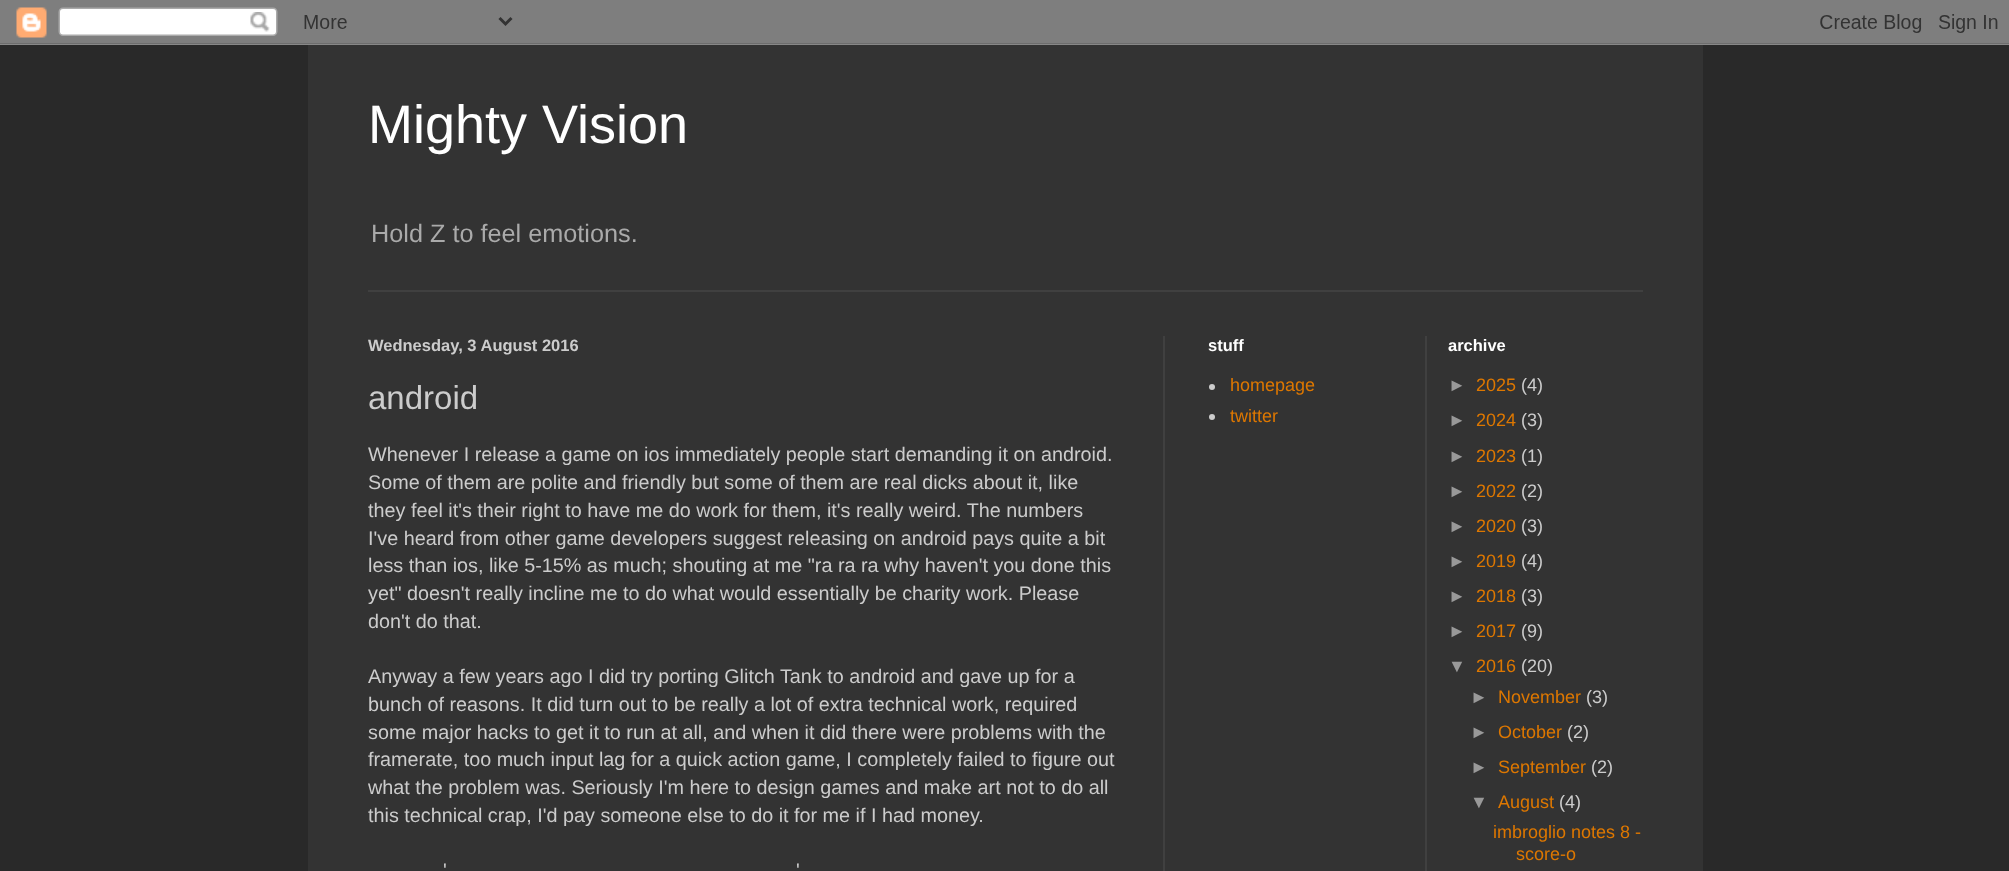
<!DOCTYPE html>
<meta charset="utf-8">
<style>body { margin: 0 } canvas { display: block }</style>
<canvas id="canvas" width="2009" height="871"></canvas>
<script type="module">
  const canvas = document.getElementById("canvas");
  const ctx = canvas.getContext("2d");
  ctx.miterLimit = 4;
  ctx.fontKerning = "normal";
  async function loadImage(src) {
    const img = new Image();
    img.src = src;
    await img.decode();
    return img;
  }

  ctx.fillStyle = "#292929";
  ctx.fillRect(0, 0, 2009, 871);
  ctx.drawImage(await loadImage("img1.png"), 0, 0, 2009, 45);
  ctx.fillStyle = "#333333";
  ctx.fillRect(308, 45, 1395, 826);
  ctx.font = "54px Liberation Sans";
  ctx.fillStyle = "#ffffff";
  ctx.fillText("Mighty Vision", 368, 143);
  ctx.font = "25.25px Liberation Sans";
  ctx.fillStyle = "#aaaaaa";
  ctx.fillText("Hold Z to feel emotions.", 371, 242);
  ctx.fillStyle = "#404040";
  ctx.fillRect(368, 290, 1275, 2);
  ctx.fillRect(1163, 336, 2, 535);
  ctx.font = "bold 16.5px Liberation Sans";
  ctx.fillStyle = "#cccccc";
  ctx.fillText("Wednesday, 3 August 2016", 368, 351);
  ctx.font = "33px Liberation Sans";
  ctx.fillText("android", 368, 409);
  ctx.font = "19.8px Liberation Sans";
  ctx.fillText("Whenever I release a game on ios immediately people start demanding it on android.", 368, 461);
  ctx.fillText("Some of them are polite and friendly but some of them are real dicks about it, like", 368, 489);
  ctx.fillText("they feel it's their right to have me do work for them, it's really weird. The numbers", 368, 517);
  ctx.fillText("I've heard from other game developers suggest releasing on android pays quite a bit", 368, 545);
  ctx.fillText("less than ios, like 5-15% as much; shouting at me \"ra ra ra why haven't you done this", 368, 572);
  ctx.fillText("yet\" doesn't really incline me to do what would essentially be charity work. Please", 368, 600);
  ctx.fillText("don't do that.", 368, 628);
  ctx.fillText("Anyway a few years ago I did try porting Glitch Tank to android and gave up for a", 368, 683);
  ctx.fillText("bunch of reasons. It did turn out to be really a lot of extra technical work, required", 368, 711);
  ctx.fillText("some major hacks to get it to run at all, and when it did there were problems with the", 368, 739);
  ctx.fillText("framerate, too much input lag for a quick action game, I completely failed to figure out", 368, 766);
  ctx.fillText("what the problem was. Seriously I'm here to design games and make art not to do all", 368, 794);
  ctx.fillText("this technical crap, I'd pay someone else to do it for me if I had money.", 368, 822);
  ctx.fillText("'", 443, 877);
  ctx.fillText("'", 796, 877);
  ctx.font = "bold 16.5px Liberation Sans";
  ctx.fillStyle = "#ffffff";
  ctx.fillText("stuff", 1208, 351);
  ctx.fillStyle = "#cccccc";
  ctx.beginPath();
  ctx.arc(1212, 387, 3, 0, Math.PI * 2);
  ctx.fill();
  ctx.font = "18px Liberation Sans";
  ctx.fillStyle = "#dd7700";
  ctx.fillText("homepage", 1230, 391);
  ctx.fillStyle = "#cccccc";
  ctx.beginPath();
  ctx.arc(1212, 417, 3, 0, Math.PI * 2);
  ctx.fill();
  ctx.fillStyle = "#dd7700";
  ctx.fillText("twitter", 1230, 422);
  ctx.fillStyle = "#404040";
  ctx.fillRect(1425, 336, 2, 535);
  ctx.font = "bold 16.5px Liberation Sans";
  ctx.fillStyle = "#ffffff";
  ctx.fillText("archive", 1448, 351);
  ctx.font = "18px Liberation Sans";
  ctx.fillStyle = "#999999";
  ctx.fillText("►", 1448, 391);
  ctx.fillStyle = "#dd7700";
  ctx.fillText("2025", 1476, 391);
  ctx.fillStyle = "#cccccc";
  ctx.fillText("(4)", 1521, 391);
  ctx.fillStyle = "#999999";
  ctx.fillText("►", 1448, 426);
  ctx.fillStyle = "#dd7700";
  ctx.fillText("2024", 1476, 426);
  ctx.fillStyle = "#cccccc";
  ctx.fillText("(3)", 1521, 426);
  ctx.fillStyle = "#999999";
  ctx.fillText("►", 1448, 462);
  ctx.fillStyle = "#dd7700";
  ctx.fillText("2023", 1476, 462);
  ctx.fillStyle = "#cccccc";
  ctx.fillText("(1)", 1521, 462);
  ctx.fillStyle = "#999999";
  ctx.fillText("►", 1448, 497);
  ctx.fillStyle = "#dd7700";
  ctx.fillText("2022", 1476, 497);
  ctx.fillStyle = "#cccccc";
  ctx.fillText("(2)", 1521, 497);
  ctx.fillStyle = "#999999";
  ctx.fillText("►", 1448, 532);
  ctx.fillStyle = "#dd7700";
  ctx.fillText("2020", 1476, 532);
  ctx.fillStyle = "#cccccc";
  ctx.fillText("(3)", 1521, 532);
  ctx.fillStyle = "#999999";
  ctx.fillText("►", 1448, 567);
  ctx.fillStyle = "#dd7700";
  ctx.fillText("2019", 1476, 567);
  ctx.fillStyle = "#cccccc";
  ctx.fillText("(4)", 1521, 567);
  ctx.fillStyle = "#999999";
  ctx.fillText("►", 1448, 602);
  ctx.fillStyle = "#dd7700";
  ctx.fillText("2018", 1476, 602);
  ctx.fillStyle = "#cccccc";
  ctx.fillText("(3)", 1521, 602);
  ctx.fillStyle = "#999999";
  ctx.fillText("►", 1448, 637);
  ctx.fillStyle = "#dd7700";
  ctx.fillText("2017", 1476, 637);
  ctx.fillStyle = "#cccccc";
  ctx.fillText("(9)", 1521, 637);
  ctx.fillStyle = "#999999";
  ctx.fillText("▼", 1448, 672);
  ctx.fillStyle = "#dd7700";
  ctx.fillText("2016", 1476, 672);
  ctx.fillStyle = "#cccccc";
  ctx.fillText("(20)", 1521, 672);
  ctx.fillStyle = "#999999";
  ctx.fillText("►", 1470, 703);
  ctx.fillStyle = "#dd7700";
  ctx.fillText("November", 1498, 703);
  ctx.fillStyle = "#cccccc";
  ctx.fillText("(3)", 1586, 703);
  ctx.fillStyle = "#999999";
  ctx.fillText("►", 1470, 738);
  ctx.fillStyle = "#dd7700";
  ctx.fillText("October", 1498, 738);
  ctx.fillStyle = "#cccccc";
  ctx.fillText("(2)", 1567, 738);
  ctx.fillStyle = "#999999";
  ctx.fillText("►", 1470, 773);
  ctx.fillStyle = "#dd7700";
  ctx.fillText("September", 1498, 773);
  ctx.fillStyle = "#cccccc";
  ctx.fillText("(2)", 1591, 773);
  ctx.fillStyle = "#999999";
  ctx.fillText("▼", 1470, 808);
  ctx.fillStyle = "#dd7700";
  ctx.fillText("August", 1498, 808);
  ctx.fillStyle = "#cccccc";
  ctx.fillText("(4)", 1559, 808);
  ctx.fillStyle = "#dd7700";
  ctx.fillText("imbroglio notes 8 -", 1493, 838);
  ctx.fillText("score-o", 1516, 860);
</script>
